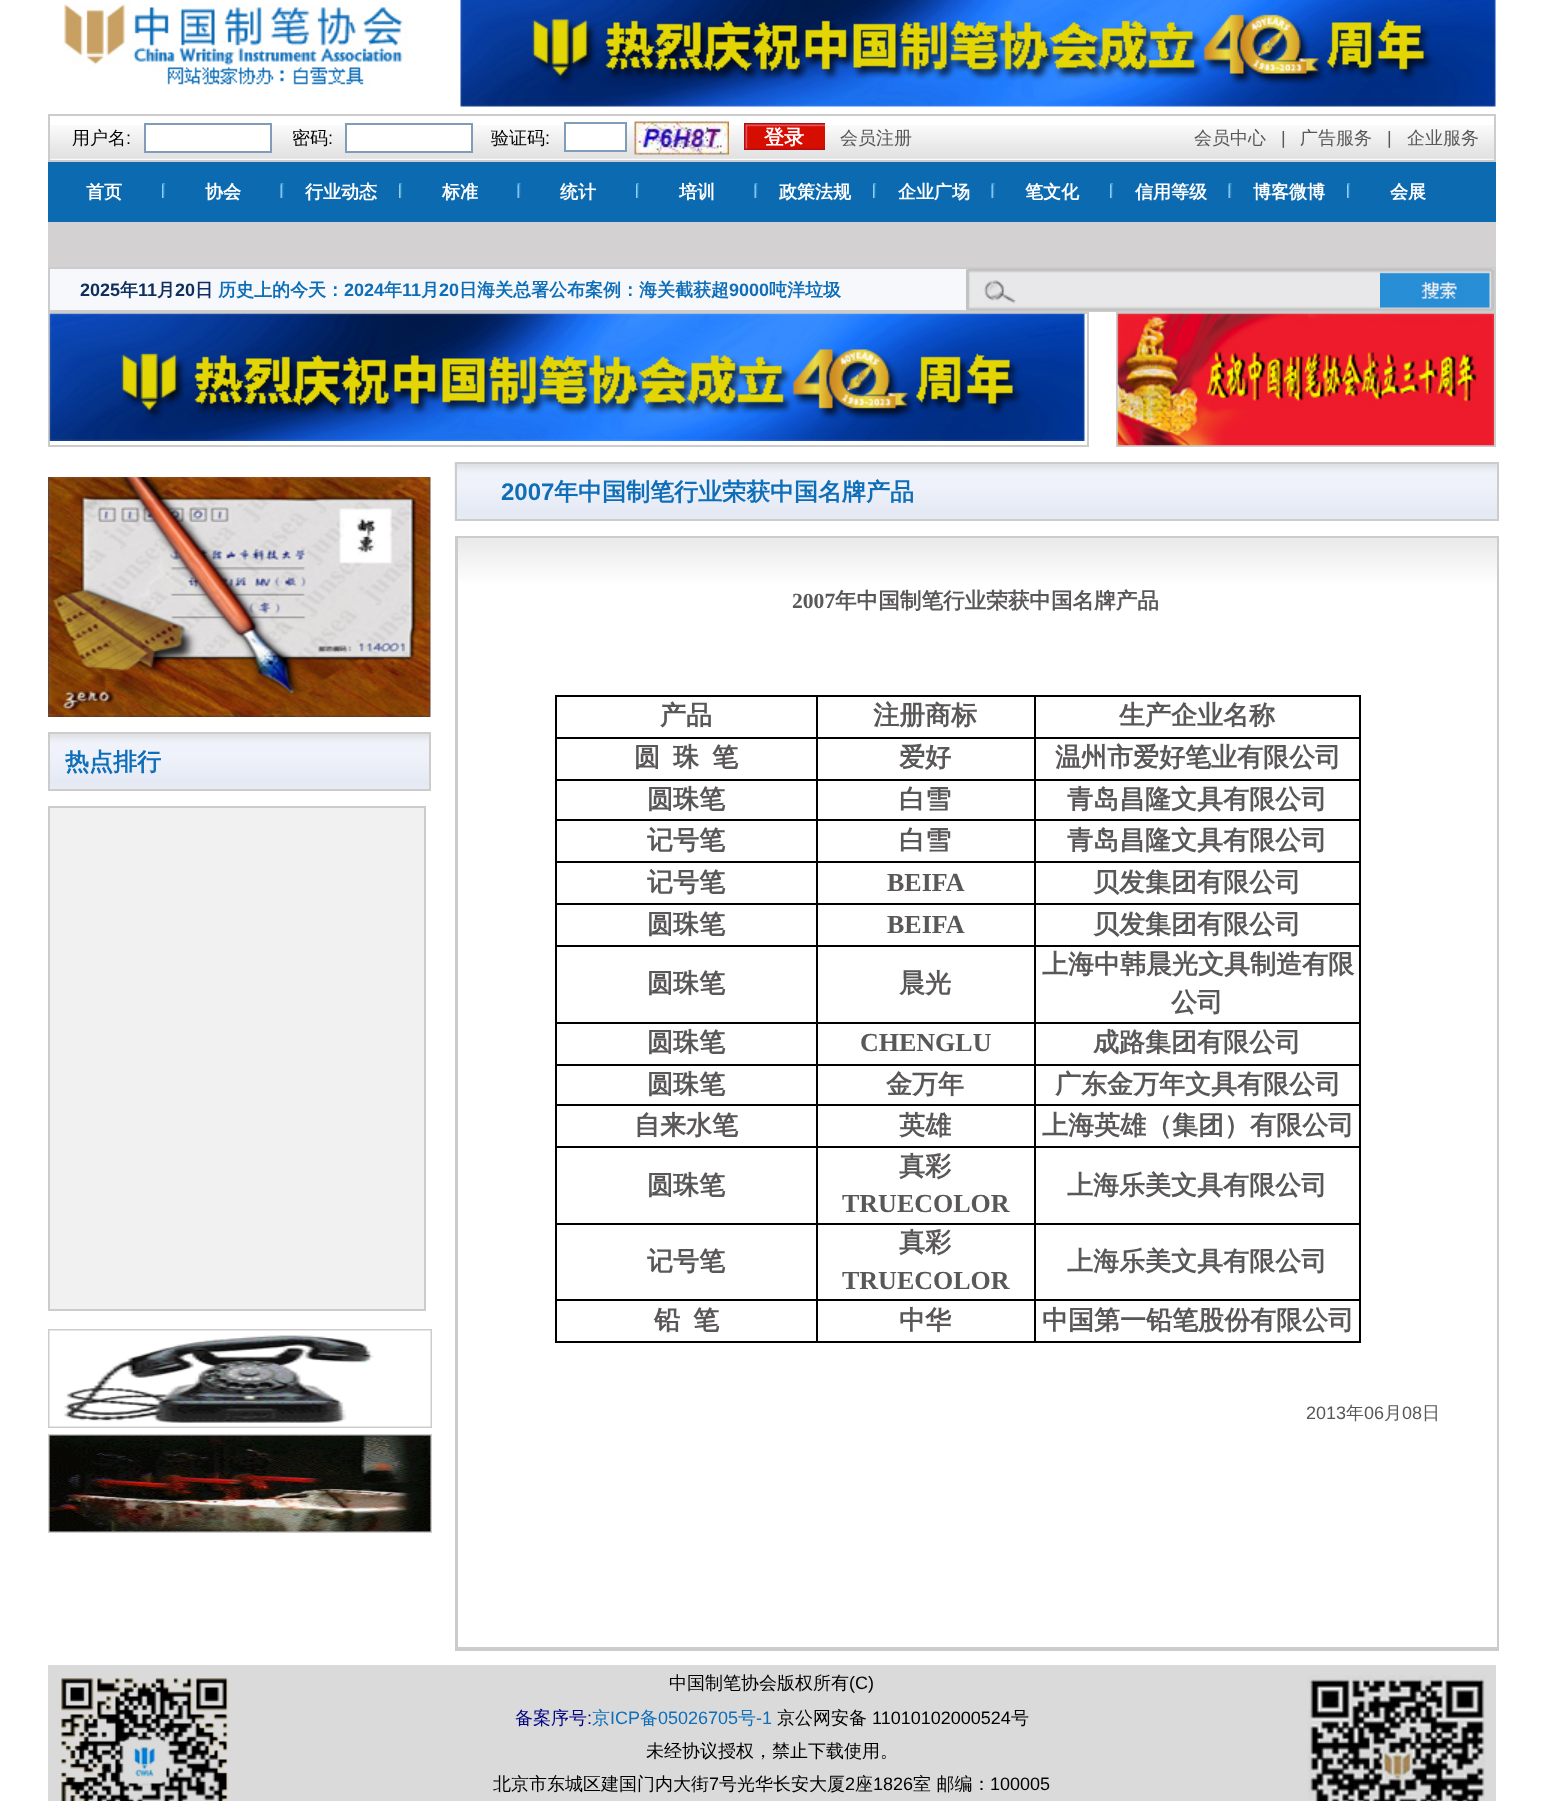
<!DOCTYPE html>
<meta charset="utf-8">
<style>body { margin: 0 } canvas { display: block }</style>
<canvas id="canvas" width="1543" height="1801"></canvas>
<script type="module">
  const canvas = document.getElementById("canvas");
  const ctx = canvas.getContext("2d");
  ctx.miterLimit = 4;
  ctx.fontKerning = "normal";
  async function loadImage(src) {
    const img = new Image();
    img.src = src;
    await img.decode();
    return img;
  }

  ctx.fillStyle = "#ffffff";
  ctx.fillRect(0, 0, 1543, 1801);
  ctx.drawImage(await loadImage("img1.png"), 63, 3, 345, 82);
  ctx.drawImage(await loadImage("img2.png"), 460, 0, 1036, 107);
  ctx.drawImage(await loadImage("img3.png"), 50, 125, 1444, 35);
  ctx.strokeStyle = "#cccccc";
  ctx.lineWidth = 2;
  ctx.strokeRect(49, 115, 1446, 46);
  ctx.font = "500 18px WenQuanYi Zen Hei";
  ctx.fillStyle = "#000000";
  ctx.fillText("用户名", 72, 144);
  ctx.font = "18px Liberation Sans";
  ctx.fillText(":", 126, 144);
  ctx.fillStyle = "#ffffff";
  ctx.beginPath();
  ctx.rect(145, 124, 126, 28);
  ctx.fill();
  ctx.strokeStyle = "#7f9db9";
  ctx.stroke();
  ctx.font = "500 18px WenQuanYi Zen Hei";
  ctx.fillStyle = "#000000";
  ctx.fillText("密码", 292, 144);
  ctx.font = "18px Liberation Sans";
  ctx.fillText(":", 328, 144);
  ctx.fillStyle = "#ffffff";
  ctx.beginPath();
  ctx.rect(346, 124, 126, 28);
  ctx.fill();
  ctx.stroke();
  ctx.font = "500 18px WenQuanYi Zen Hei";
  ctx.fillStyle = "#000000";
  ctx.fillText("验证码", 491, 144);
  ctx.font = "18px Liberation Sans";
  ctx.fillText(":", 545, 144);
  ctx.fillStyle = "#ffffff";
  ctx.fillRect(566, 125, 59, 25);
  ctx.strokeRect(565, 123, 61, 28);
  ctx.drawImage(await loadImage("img4.png"), 634, 121, 95, 34);
  ctx.drawImage(await loadImage("img5.png"), 744, 123, 81, 27);
  ctx.font = "bold 20px WenQuanYi Zen Hei";
  ctx.fillText("登录", 764, 144);
  ctx.font = "500 18px WenQuanYi Zen Hei";
  ctx.fillStyle = "#595757";
  ctx.fillText("会员注册", 840, 144);
  ctx.fillText("会员中心", 1194, 144);
  ctx.font = "18px Liberation Sans";
  ctx.fillText("|", 1281, 144);
  ctx.font = "500 18px WenQuanYi Zen Hei";
  ctx.fillText("广告服务", 1300, 144);
  ctx.font = "18px Liberation Sans";
  ctx.fillText("|", 1387, 144);
  ctx.font = "500 18px WenQuanYi Zen Hei";
  ctx.fillText("企业服务", 1407, 144);
  ctx.fillStyle = "#d3d1d2";
  ctx.fillRect(48, 222, 1448, 45);
  ctx.fillStyle = "#0c6ab0";
  ctx.fillRect(48, 162, 1448, 60);
  ctx.font = "bold 18px WenQuanYi Zen Hei";
  ctx.fillStyle = "#ffffff";
  ctx.fillText("首页", 86, 198);
  ctx.drawImage(await loadImage("img6.png"), 162, 183, 3, 15);
  ctx.fillText("协会", 205, 198);
  ctx.drawImage(await loadImage("img7.png"), 280, 183, 4, 15);
  ctx.fillText("行业动态", 305, 198);
  ctx.drawImage(await loadImage("img8.png"), 399, 183, 3, 15);
  ctx.fillText("标准", 442, 198);
  ctx.drawImage(await loadImage("img7.png"), 517, 183, 4, 15);
  ctx.fillText("统计", 560, 198);
  ctx.drawImage(await loadImage("img6.png"), 636, 183, 3, 15);
  ctx.fillText("培训", 679, 198);
  ctx.drawImage(await loadImage("img7.png"), 754, 183, 4, 15);
  ctx.fillText("政策法规", 779, 198);
  ctx.drawImage(await loadImage("img6.png"), 873, 183, 3, 15);
  ctx.fillText("企业广场", 898, 198);
  ctx.drawImage(await loadImage("img7.png"), 991, 183, 4, 15);
  ctx.fillText("笔文化", 1025, 198);
  ctx.drawImage(await loadImage("img8.png"), 1110, 183, 3, 15);
  ctx.fillText("信用等级", 1135, 198);
  ctx.drawImage(await loadImage("img7.png"), 1228, 183, 4, 15);
  ctx.fillText("博客微博", 1253, 198);
  ctx.drawImage(await loadImage("img8.png"), 1347, 183, 3, 15);
  ctx.fillText("会展", 1390, 198);
  ctx.fillStyle = "#f7f8fc";
  ctx.fillRect(50, 269, 916, 41);
  ctx.strokeStyle = "#cccccc";
  ctx.strokeRect(49, 268, 1446, 43);
  ctx.font = "bold 18px Liberation Sans";
  ctx.fillStyle = "#0e2e5e";
  ctx.fillText("2025", 80, 296);
  ctx.font = "bold 18px WenQuanYi Zen Hei";
  ctx.fillText("年", 120, 296);
  ctx.font = "bold 18px Liberation Sans";
  ctx.fillText("11", 138, 296);
  ctx.font = "bold 18px WenQuanYi Zen Hei";
  ctx.fillText("月", 157, 296);
  ctx.font = "bold 18px Liberation Sans";
  ctx.fillText("20", 175, 296);
  ctx.font = "bold 18px WenQuanYi Zen Hei";
  ctx.fillText("日", 195, 296);
  ctx.fillStyle = "#0e6eb8";
  ctx.fillText("历史上的今天：", 218, 296);
  ctx.font = "bold 18px Liberation Sans";
  ctx.fillText("2024", 344, 296);
  ctx.font = "bold 18px WenQuanYi Zen Hei";
  ctx.fillText("年", 384, 296);
  ctx.font = "bold 18px Liberation Sans";
  ctx.fillText("11", 402, 296);
  ctx.font = "bold 18px WenQuanYi Zen Hei";
  ctx.fillText("月", 421, 296);
  ctx.font = "bold 18px Liberation Sans";
  ctx.fillText("20", 439, 296);
  ctx.font = "bold 18px WenQuanYi Zen Hei";
  ctx.fillText("日海关总署公布案例：海关截获超", 459, 296);
  ctx.font = "bold 18px Liberation Sans";
  ctx.fillText("9000", 729, 296);
  ctx.font = "bold 18px WenQuanYi Zen Hei";
  ctx.fillText("吨洋垃圾", 769, 296);
  ctx.drawImage(await loadImage("img9.png"), 966, 268, 414, 43);
  ctx.drawImage(await loadImage("img10.png"), 1380, 268, 114, 43);
  ctx.strokeRect(49, 313, 1039, 133);
  ctx.drawImage(await loadImage("img11.png"), 49, 313, 1036, 128);
  ctx.strokeRect(1117, 313, 378, 133);
  ctx.drawImage(await loadImage("img12.png"), 1117, 313, 377, 133);
  ctx.drawImage(await loadImage("img13.png"), 48, 477, 383, 240);
  ctx.drawImage(await loadImage("img14.png"), 50, 734, 379, 55);
  ctx.strokeRect(49, 733, 381, 57);
  ctx.font = "bold 24px WenQuanYi Zen Hei";
  ctx.fillText("热点排行", 65, 770);
  ctx.fillStyle = "#f1f1f1";
  ctx.beginPath();
  ctx.rect(49, 807, 376, 503);
  ctx.fill();
  ctx.stroke();
  ctx.strokeRect(49, 1330, 382, 97);
  ctx.drawImage(await loadImage("img15.png"), 49, 1330, 382, 97);
  ctx.strokeRect(49, 1435, 382, 97);
  ctx.drawImage(await loadImage("img16.png"), 49, 1435, 382, 97);
  ctx.drawImage(await loadImage("img17.png"), 454, 462, 1043, 59);
  ctx.strokeRect(456, 463, 1042, 57);
  ctx.font = "bold 24px Liberation Sans";
  ctx.fillStyle = "#0e6eb8";
  ctx.fillText("2007", 501, 500);
  ctx.font = "bold 24px WenQuanYi Zen Hei";
  ctx.fillText("年中国制笔行业荣获中国名牌产品", 554, 500);
  ctx.fillStyle = "#cccccc";
  ctx.fillRect(455, 1649, 1044, 2);
  ctx.fillRect(455, 536, 2, 1114);
  ctx.drawImage(await loadImage("img18.png"), 458, 538, 1039, 67);
  ctx.strokeRect(457, 537, 1041, 1111);
  ctx.font = "bold 21.6px Liberation Serif";
  ctx.fillStyle = "#595757";
  ctx.fillText("2007", 792, 608);
  ctx.font = "bold 21.6px WenQuanYi Zen Hei";
  ctx.fillText("年中国制笔行业荣获中国名牌产品", 835, 608);
  ctx.fillStyle = "#000000";
  ctx.fillRect(555, 695, 806, 2);
  ctx.fillRect(1359, 737, 2, 606);
  ctx.fillRect(1359, 695, 2, 43);
  ctx.fillRect(1034, 1341, 327, 2);
  ctx.fillRect(1034, 1299, 2, 44);
  ctx.fillRect(1034, 1299, 327, 2);
  ctx.fillRect(1034, 1223, 2, 78);
  ctx.fillRect(1034, 1223, 327, 2);
  ctx.fillRect(1034, 1146, 2, 78);
  ctx.fillRect(1034, 1146, 327, 2);
  ctx.fillRect(1034, 1104, 2, 44);
  ctx.fillRect(1034, 1104, 327, 2);
  ctx.fillRect(1034, 1064, 2, 42);
  ctx.fillRect(1034, 1064, 327, 2);
  ctx.fillRect(1034, 1022, 2, 43);
  ctx.fillRect(1034, 1022, 327, 2);
  ctx.fillRect(1034, 945, 2, 78);
  ctx.fillRect(1034, 945, 327, 2);
  ctx.fillRect(1034, 903, 2, 44);
  ctx.fillRect(1034, 903, 327, 2);
  ctx.fillRect(1034, 861, 2, 44);
  ctx.fillRect(1034, 861, 327, 2);
  ctx.fillRect(1034, 819, 2, 44);
  ctx.fillRect(1034, 819, 327, 2);
  ctx.fillRect(1034, 779, 2, 42);
  ctx.fillRect(1034, 779, 327, 2);
  ctx.fillRect(1034, 737, 2, 43);
  ctx.fillRect(1034, 737, 327, 2);
  ctx.fillRect(1034, 695, 2, 43);
  ctx.fillRect(816, 1341, 219, 2);
  ctx.fillRect(816, 1299, 2, 44);
  ctx.fillRect(816, 1299, 219, 2);
  ctx.fillRect(816, 1223, 2, 78);
  ctx.fillRect(816, 1223, 219, 2);
  ctx.fillRect(816, 1146, 2, 78);
  ctx.fillRect(816, 1146, 219, 2);
  ctx.fillRect(816, 1104, 2, 44);
  ctx.fillRect(816, 1104, 219, 2);
  ctx.fillRect(816, 1064, 2, 42);
  ctx.fillRect(816, 1064, 219, 2);
  ctx.fillRect(816, 1022, 2, 43);
  ctx.fillRect(816, 1022, 219, 2);
  ctx.fillRect(816, 945, 2, 78);
  ctx.fillRect(816, 945, 219, 2);
  ctx.fillRect(816, 903, 2, 44);
  ctx.fillRect(816, 903, 219, 2);
  ctx.fillRect(816, 861, 2, 44);
  ctx.fillRect(816, 861, 219, 2);
  ctx.fillRect(816, 819, 2, 44);
  ctx.fillRect(816, 819, 219, 2);
  ctx.fillRect(816, 779, 2, 42);
  ctx.fillRect(816, 779, 219, 2);
  ctx.fillRect(816, 737, 2, 43);
  ctx.fillRect(816, 737, 219, 2);
  ctx.fillRect(816, 695, 2, 43);
  ctx.fillRect(555, 1341, 263, 2);
  ctx.fillRect(555, 1299, 2, 44);
  ctx.fillRect(555, 1299, 263, 2);
  ctx.fillRect(555, 1223, 2, 78);
  ctx.fillRect(555, 1223, 263, 2);
  ctx.fillRect(555, 1146, 2, 78);
  ctx.fillRect(555, 1146, 263, 2);
  ctx.fillRect(555, 1104, 2, 44);
  ctx.fillRect(555, 1104, 263, 2);
  ctx.fillRect(555, 1064, 2, 42);
  ctx.fillRect(555, 1064, 263, 2);
  ctx.fillRect(555, 1022, 2, 43);
  ctx.fillRect(555, 1022, 263, 2);
  ctx.fillRect(555, 945, 2, 78);
  ctx.fillRect(555, 945, 263, 2);
  ctx.fillRect(555, 903, 2, 44);
  ctx.fillRect(555, 903, 263, 2);
  ctx.fillRect(555, 861, 2, 44);
  ctx.fillRect(555, 861, 263, 2);
  ctx.fillRect(555, 819, 2, 44);
  ctx.fillRect(555, 819, 263, 2);
  ctx.fillRect(555, 779, 2, 42);
  ctx.fillRect(555, 779, 263, 2);
  ctx.fillRect(555, 737, 2, 43);
  ctx.fillRect(555, 737, 263, 2);
  ctx.fillRect(555, 695, 2, 43);
  ctx.font = "bold 26px WenQuanYi Zen Hei";
  ctx.fillStyle = "#595757";
  ctx.fillText("产品", 660, 724);
  ctx.fillText("注册商标", 873, 724);
  ctx.fillText("生产企业名称", 1119, 724);
  ctx.fillText("圆", 634, 766);
  ctx.fillText("珠", 673, 766);
  ctx.fillText("笔", 712, 766);
  ctx.fillText("爱好", 899, 766);
  ctx.fillText("温州市爱好笔业有限公司", 1055, 766);
  ctx.fillText("圆珠笔", 647, 808);
  ctx.fillText("白雪", 899, 808);
  ctx.fillText("青岛昌隆文具有限公司", 1067, 808);
  ctx.fillText("记号笔", 647, 849);
  ctx.fillText("白雪", 899, 849);
  ctx.fillText("青岛昌隆文具有限公司", 1067, 849);
  ctx.fillText("记号笔", 647, 891);
  ctx.font = "bold 26px Liberation Serif";
  ctx.fillText("BEIFA", 887, 891);
  ctx.font = "bold 26px WenQuanYi Zen Hei";
  ctx.fillText("贝发集团有限公司", 1093, 891);
  ctx.fillText("圆珠笔", 647, 933);
  ctx.font = "bold 26px Liberation Serif";
  ctx.fillText("BEIFA", 887, 933);
  ctx.font = "bold 26px WenQuanYi Zen Hei";
  ctx.fillText("贝发集团有限公司", 1093, 933);
  ctx.fillText("圆珠笔", 647, 992);
  ctx.fillText("晨光", 899, 992);
  ctx.fillText("上海中韩晨光文具制造有限", 1042, 973);
  ctx.fillText("公司", 1171, 1011);
  ctx.fillText("圆珠笔", 647, 1051);
  ctx.font = "bold 26px Liberation Serif";
  ctx.fillText("CHENGLU", 860, 1051);
  ctx.font = "bold 26px WenQuanYi Zen Hei";
  ctx.fillText("成路集团有限公司", 1093, 1051);
  ctx.fillText("圆珠笔", 647, 1093);
  ctx.fillText("金万年", 886, 1093);
  ctx.fillText("广东金万年文具有限公司", 1055, 1093);
  ctx.fillText("自来水笔", 634, 1134);
  ctx.fillText("英雄", 899, 1134);
  ctx.fillText("上海英雄（集团）有限公司", 1042, 1134);
  ctx.fillText("圆珠笔", 647, 1194);
  ctx.fillText("真彩", 899, 1175);
  ctx.font = "bold 26px Liberation Serif";
  ctx.fillText("TRUECOLOR", 842, 1212);
  ctx.font = "bold 26px WenQuanYi Zen Hei";
  ctx.fillText("上海乐美文具有限公司", 1067, 1194);
  ctx.fillText("记号笔", 647, 1270);
  ctx.fillText("真彩", 899, 1251);
  ctx.font = "bold 26px Liberation Serif";
  ctx.fillText("TRUECOLOR", 842, 1289);
  ctx.font = "bold 26px WenQuanYi Zen Hei";
  ctx.fillText("上海乐美文具有限公司", 1067, 1270);
  ctx.fillText("铅", 654, 1329);
  ctx.fillText("笔", 693, 1329);
  ctx.fillText("中华", 899, 1329);
  ctx.fillText("中国第一铅笔股份有限公司", 1042, 1329);
  ctx.font = "18px Liberation Sans";
  ctx.fillText("2013", 1306, 1419);
  ctx.font = "500 18px WenQuanYi Zen Hei";
  ctx.fillText("年", 1346, 1419);
  ctx.font = "18px Liberation Sans";
  ctx.fillText("06", 1364, 1419);
  ctx.font = "500 18px WenQuanYi Zen Hei";
  ctx.fillText("月", 1384, 1419);
  ctx.font = "18px Liberation Sans";
  ctx.fillText("08", 1402, 1419);
  ctx.font = "500 18px WenQuanYi Zen Hei";
  ctx.fillText("日", 1422, 1419);
  ctx.fillStyle = "#dbdada";
  ctx.fillRect(48, 1665, 1448, 136);
  ctx.drawImage(await loadImage("img19.png"), 1307, 1675, 178, 126);
  ctx.drawImage(await loadImage("img20.png"), 61, 1678, 182, 123);
  ctx.fillStyle = "#000000";
  ctx.fillText("中国制笔协会版权所有", 669, 1689);
  ctx.font = "18px Liberation Sans";
  ctx.fillText("(C)", 849, 1689);
  ctx.font = "500 18px WenQuanYi Zen Hei";
  ctx.fillStyle = "#000080";
  ctx.fillText("备案序号", 515, 1724);
  ctx.font = "18px Liberation Sans";
  ctx.fillText(":", 587, 1724);
  ctx.font = "500 18px WenQuanYi Zen Hei";
  ctx.fillStyle = "#0e6eb8";
  ctx.fillText("京", 592, 1724);
  ctx.font = "18px Liberation Sans";
  ctx.fillText("ICP", 610, 1724);
  ctx.font = "500 18px WenQuanYi Zen Hei";
  ctx.fillText("备", 640, 1724);
  ctx.font = "18px Liberation Sans";
  ctx.fillText("05026705", 658, 1724);
  ctx.font = "500 18px WenQuanYi Zen Hei";
  ctx.fillText("号", 738, 1724);
  ctx.font = "18px Liberation Sans";
  ctx.fillText("-1", 756, 1724);
  ctx.font = "500 18px WenQuanYi Zen Hei";
  ctx.fillStyle = "#000000";
  ctx.fillText("京公网安备", 777, 1724);
  ctx.font = "18px Liberation Sans";
  ctx.fillText("11010102000524", 872, 1724);
  ctx.font = "500 18px WenQuanYi Zen Hei";
  ctx.fillText("号", 1011, 1724);
  ctx.fillText("未经协议授权，禁止下载使用。", 646, 1757);
  ctx.fillText("北京市东城区建国门内大街", 493, 1790);
  ctx.font = "18px Liberation Sans";
  ctx.fillText("7", 709, 1790);
  ctx.font = "500 18px WenQuanYi Zen Hei";
  ctx.fillText("号光华长安大厦", 719, 1790);
  ctx.font = "18px Liberation Sans";
  ctx.fillText("2", 845, 1790);
  ctx.font = "500 18px WenQuanYi Zen Hei";
  ctx.fillText("座", 855, 1790);
  ctx.font = "18px Liberation Sans";
  ctx.fillText("1826", 873, 1790);
  ctx.font = "500 18px WenQuanYi Zen Hei";
  ctx.fillText("室 邮编：", 913, 1790);
  ctx.font = "18px Liberation Sans";
  ctx.fillText("100005", 990, 1790);
</script>
